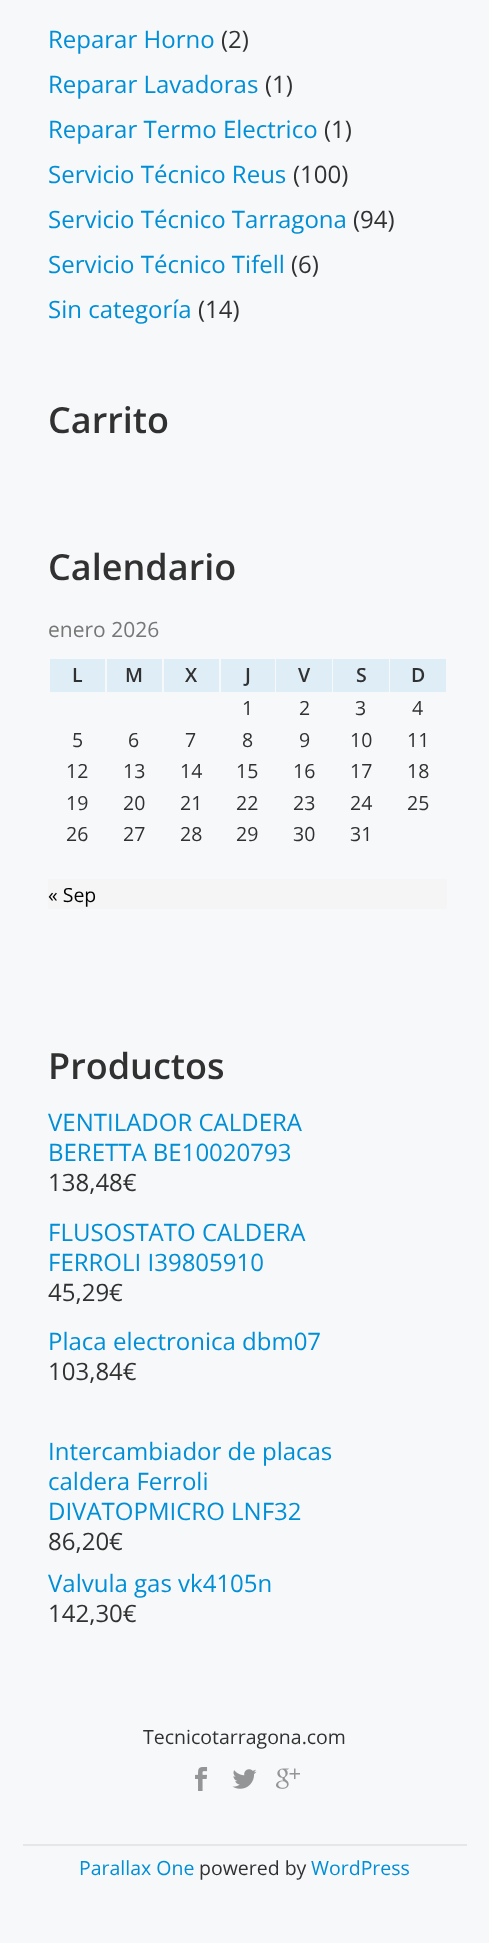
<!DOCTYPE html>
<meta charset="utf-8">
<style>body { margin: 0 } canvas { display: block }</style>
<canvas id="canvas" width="489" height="1943"></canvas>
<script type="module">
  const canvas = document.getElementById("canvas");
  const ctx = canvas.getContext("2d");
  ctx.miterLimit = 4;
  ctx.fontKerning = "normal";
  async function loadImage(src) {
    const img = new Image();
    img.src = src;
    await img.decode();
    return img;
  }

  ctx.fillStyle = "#f7f8fa";
  ctx.fillRect(0, 0, 489, 1943);
  ctx.font = "24px Open Sans";
  ctx.fillStyle = "#008ed6";
  ctx.fillText("Reparar Horno", 48, 48);
  ctx.fillStyle = "#313131";
  ctx.fillText("(2)", 221, 48);
  ctx.fillStyle = "#008ed6";
  ctx.fillText("Reparar Lavadoras", 48, 93);
  ctx.fillStyle = "#313131";
  ctx.fillText("(1)", 265, 93);
  ctx.fillStyle = "#008ed6";
  ctx.fillText("Reparar Termo Electrico", 48, 138);
  ctx.fillStyle = "#313131";
  ctx.fillText("(1)", 324, 138);
  ctx.fillStyle = "#008ed6";
  ctx.fillText("Servicio Técnico Reus", 48, 183);
  ctx.fillStyle = "#313131";
  ctx.fillText("(100)", 293, 183);
  ctx.fillStyle = "#008ed6";
  ctx.fillText("Servicio Técnico Tarragona", 48, 228);
  ctx.fillStyle = "#313131";
  ctx.fillText("(94)", 353, 228);
  ctx.fillStyle = "#008ed6";
  ctx.fillText("Servicio Técnico Tifell", 48, 273);
  ctx.fillStyle = "#313131";
  ctx.fillText("(6)", 291, 273);
  ctx.fillStyle = "#008ed6";
  ctx.fillText("Sin categoría", 48, 318);
  ctx.fillStyle = "#313131";
  ctx.fillText("(14)", 198, 318);
  ctx.font = "600 36px Open Sans";
  ctx.fillText("Carrito", 48, 433);
  ctx.fillText("Calendario", 48, 580);
  ctx.font = "21px Open Sans";
  ctx.fillStyle = "#777777";
  ctx.fillText("enero 2026", 48, 637);
  ctx.fillStyle = "#deedf6";
  ctx.fillRect(50, 659, 55, 33);
  ctx.font = "600 19.5px Open Sans";
  ctx.fillStyle = "#313131";
  ctx.fillText("L", 72, 682);
  ctx.fillStyle = "#deedf6";
  ctx.fillRect(107, 659, 55, 33);
  ctx.fillStyle = "#313131";
  ctx.fillText("M", 125, 682);
  ctx.fillStyle = "#deedf6";
  ctx.fillRect(164, 659, 55, 33);
  ctx.fillStyle = "#313131";
  ctx.fillText("X", 185, 682);
  ctx.fillStyle = "#deedf6";
  ctx.fillRect(221, 659, 54, 33);
  ctx.fillStyle = "#313131";
  ctx.fillText("J", 245, 682);
  ctx.fillStyle = "#deedf6";
  ctx.fillRect(276, 659, 56, 33);
  ctx.fillStyle = "#313131";
  ctx.fillText("V", 298, 682);
  ctx.fillStyle = "#deedf6";
  ctx.fillRect(333, 659, 56, 33);
  ctx.fillStyle = "#313131";
  ctx.fillText("S", 356, 682);
  ctx.fillStyle = "#deedf6";
  ctx.fillRect(390, 659, 56, 33);
  ctx.fillStyle = "#313131";
  ctx.fillText("D", 411, 682);
  ctx.font = "19.5px Open Sans";
  ctx.fillText("1", 242, 715);
  ctx.fillText("2", 299, 715);
  ctx.fillText("3", 355, 715);
  ctx.fillText("4", 412, 715);
  ctx.fillText("5", 72, 747);
  ctx.fillText("6", 128, 747);
  ctx.fillText("7", 185, 747);
  ctx.fillText("8", 242, 747);
  ctx.fillText("9", 299, 747);
  ctx.fillText("10", 350, 747);
  ctx.fillText("11", 407, 747);
  ctx.fillText("12", 66, 778);
  ctx.fillText("13", 123, 778);
  ctx.fillText("14", 180, 778);
  ctx.fillText("15", 236, 778);
  ctx.fillText("16", 293, 778);
  ctx.fillText("17", 350, 778);
  ctx.fillText("18", 407, 778);
  ctx.fillText("19", 66, 810);
  ctx.fillText("20", 123, 810);
  ctx.fillText("21", 180, 810);
  ctx.fillText("22", 236, 810);
  ctx.fillText("23", 293, 810);
  ctx.fillText("24", 350, 810);
  ctx.fillText("25", 407, 810);
  ctx.fillText("26", 66, 841);
  ctx.fillText("27", 123, 841);
  ctx.fillText("28", 180, 841);
  ctx.fillText("29", 236, 841);
  ctx.fillText("30", 293, 841);
  ctx.fillText("31", 350, 841);
  ctx.fillStyle = "#f5f5f5";
  ctx.fillRect(48, 879, 399, 30);
  ctx.fillStyle = "#000000";
  ctx.fillText("« Sep", 48, 902);
  ctx.font = "600 36px Open Sans";
  ctx.fillStyle = "#313131";
  ctx.fillText("Productos", 48, 1079);
  ctx.font = "24px Open Sans";
  ctx.fillStyle = "#008ed6";
  ctx.fillText("VENTILADOR CALDERA", 48, 1131);
  ctx.fillText("BERETTA BE10020793", 48, 1161);
  ctx.fillStyle = "#313131";
  ctx.fillText("138,48€", 48, 1191);
  ctx.fillStyle = "#008ed6";
  ctx.fillText("FLUSOSTATO CALDERA", 48, 1241);
  ctx.fillText("FERROLI I39805910", 48, 1271);
  ctx.fillStyle = "#313131";
  ctx.fillText("45,29€", 48, 1301);
  ctx.fillStyle = "#008ed6";
  ctx.fillText("Placa electronica dbm07", 48, 1350);
  ctx.fillStyle = "#313131";
  ctx.fillText("103,84€", 48, 1380);
  ctx.fillStyle = "#008ed6";
  ctx.fillText("Intercambiador de placas", 48, 1460);
  ctx.fillText("caldera Ferroli", 48, 1490);
  ctx.fillText("DIVATOPMICRO LNF32", 48, 1520);
  ctx.fillStyle = "#313131";
  ctx.fillText("86,20€", 48, 1550);
  ctx.fillStyle = "#008ed6";
  ctx.fillText("Valvula gas vk4105n", 48, 1592);
  ctx.fillStyle = "#313131";
  ctx.fillText("142,30€", 48, 1622);
  ctx.font = "19.5px Open Sans";
  ctx.fillText("Tecnicotarragona.com", 143, 1744);
  ctx.drawImage(await loadImage("img1.png"), 195, 1767, 13, 24);
  ctx.drawImage(await loadImage("img2.png"), 232, 1769, 25, 20);
  ctx.drawImage(await loadImage("img3.png"), 276, 1768, 24, 21);
  ctx.fillStyle = "#e4e7e7";
  ctx.fillRect(23, 1844, 444, 2);
  ctx.fillStyle = "#008ed6";
  ctx.fillText("Parallax One", 79, 1875);
  ctx.fillStyle = "#313131";
  ctx.fillText("powered by", 199, 1875);
  ctx.fillStyle = "#008ed6";
  ctx.fillText("WordPress", 311, 1875);
</script>
